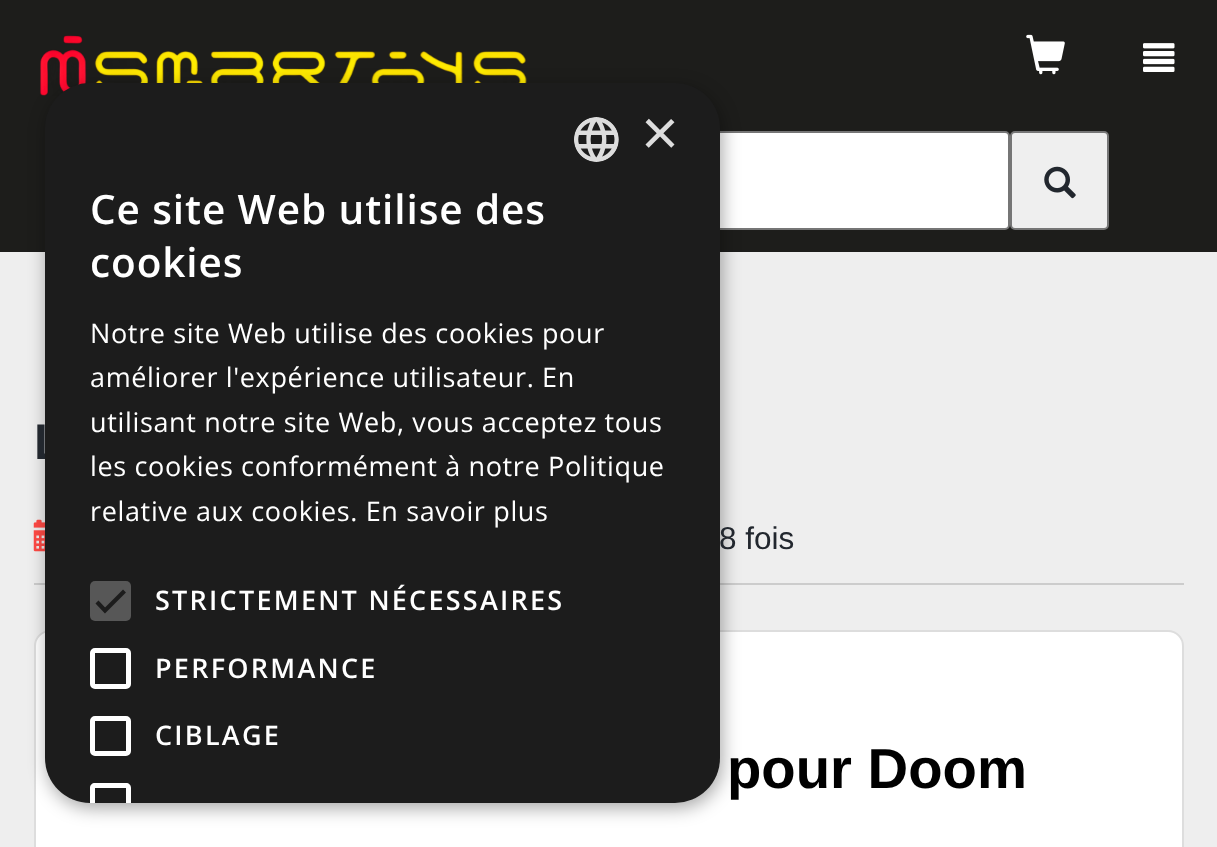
<!DOCTYPE html>
<meta charset="utf-8">
<style>body { margin: 0 } canvas { display: block }</style>
<canvas id="canvas" width="1217" height="847"></canvas>
<script type="module">
  const canvas = document.getElementById("canvas");
  const ctx = canvas.getContext("2d");
  ctx.miterLimit = 4;
  ctx.fontKerning = "normal";
  async function loadImage(src) {
    const img = new Image();
    img.src = src;
    await img.decode();
    return img;
  }

  ctx.fillStyle = "#eeeeee";
  ctx.fillRect(0, 0, 1217, 847);
  ctx.fillStyle = "#1d1d1b";
  ctx.fillRect(0, 0, 1217, 252);
  ctx.drawImage(await loadImage("img1.png"), 40, 35, 487, 61);
  ctx.drawImage(await loadImage("img2.png"), 1026, 34, 39, 41);
  ctx.drawImage(await loadImage("img3.png"), 1143, 43, 32, 29);
  ctx.fillStyle = "#ffffff";
  ctx.beginPath();
  ctx.roundRect(57, 132, 952, 97, 4);
  ctx.fill();
  ctx.strokeStyle = "#767676";
  ctx.lineWidth = 2;
  ctx.stroke();
  ctx.fillStyle = "#efefef";
  ctx.beginPath();
  ctx.roundRect(1011, 132, 97, 97, 4);
  ctx.fill();
  ctx.stroke();
  ctx.drawImage(await loadImage("img4.png"), 1044, 166, 32, 33);
  ctx.drawImage(await loadImage("img6.png"), 33, 519, 12, 33);
  ctx.fillStyle = "#cccccc";
  ctx.fillRect(34, 583, 1150, 2);
  ctx.fillStyle = "#ffffff";
  ctx.beginPath();
  ctx.roundRect(35, 631, 1148, 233, 15);
  ctx.fill();
  ctx.strokeStyle = "#dddddd";
  ctx.stroke();
  ctx.fillStyle = "rgba(0, 0, 0, 0.35)";
  ctx.filter = "blur(9px)";
  ctx.beginPath();
  ctx.roundRect(47, 88, 675, 720, 45);
  ctx.fill();
  ctx.filter = "none";
  ctx.font = "bold 50px Liberation Sans";
  ctx.fillStyle = "#22272e";
  ctx.fillText("L", 34, 459);
  ctx.fillStyle = "#1c1c1c";
  ctx.beginPath();
  ctx.roundRect(45, 83, 675, 720, 45);
  ctx.fill();
  ctx.drawImage(await loadImage("img5.png"), 574, 117, 45, 45);
  ctx.font = "65px Liberation Sans";
  ctx.fillStyle = "#dddddd";
  ctx.fillText("×", 641, 155);
  ctx.letterSpacing = "0.9px";
  ctx.font = "600 40.5px Open Sans";
  ctx.fillStyle = "#ffffff";
  ctx.fillText("Ce site Web utilise des", 90, 224);
  ctx.fillText("cookies", 90, 277);
  ctx.letterSpacing = "0.65px";
  ctx.font = "27px Open Sans";
  ctx.fillText("Notre site Web utilise des cookies pour", 90, 343);
  ctx.fillText("améliorer l'expérience utilisateur. En", 90, 387);
  ctx.fillText("utilisant notre site Web, vous acceptez tous", 90, 432);
  ctx.fillText("les cookies conformément à notre Politique", 90, 476);
  ctx.fillText("relative aux cookies. En savoir plus", 90, 521);
  ctx.fillStyle = "#575757";
  ctx.beginPath();
  ctx.roundRect(90, 581, 41, 40, 5);
  ctx.fill();
  ctx.beginPath();
  ctx.moveTo(97, 602);
  ctx.lineTo(105, 610.5);
  ctx.lineTo(124.5, 591);
  ctx.strokeStyle = "#1c1c1c";
  ctx.lineWidth = 4.1;
  ctx.stroke();
  ctx.letterSpacing = "2.25px";
  ctx.font = "600 27px Open Sans";
  ctx.fillStyle = "#ffffff";
  ctx.fillText("STRICTEMENT NÉCESSAIRES", 155, 610);
  ctx.beginPath();
  ctx.roundRect(92.5, 650.5, 36, 36, 2.5);
  ctx.strokeStyle = "#ffffff";
  ctx.lineWidth = 5;
  ctx.stroke();
  ctx.fillText("PERFORMANCE", 155, 678);
  ctx.beginPath();
  ctx.roundRect(92.5, 718.5, 36, 35, 2.5);
  ctx.stroke();
  ctx.fillText("CIBLAGE", 155, 745);
  ctx.beginPath();
  ctx.moveTo(95, 783);
  ctx.bezierCurveTo(92, 783, 90, 785, 90, 788);
  ctx.lineTo(90, 803);
  ctx.lineTo(95, 803);
  ctx.lineTo(95, 788);
  ctx.lineTo(126, 788);
  ctx.lineTo(126, 803);
  ctx.lineTo(131, 803);
  ctx.lineTo(131, 788);
  ctx.bezierCurveTo(131, 785, 129, 783, 126, 783);
  ctx.closePath();
  ctx.fill();
  ctx.letterSpacing = "0px";
  ctx.font = "31.5px Liberation Sans";
  ctx.fillStyle = "#22272e";
  ctx.fillText("8 fois", 719, 549);
  ctx.font = "bold 56.25px Liberation Sans";
  ctx.fillStyle = "#000000";
  ctx.fillText("pour Doom", 727, 788);
</script>
